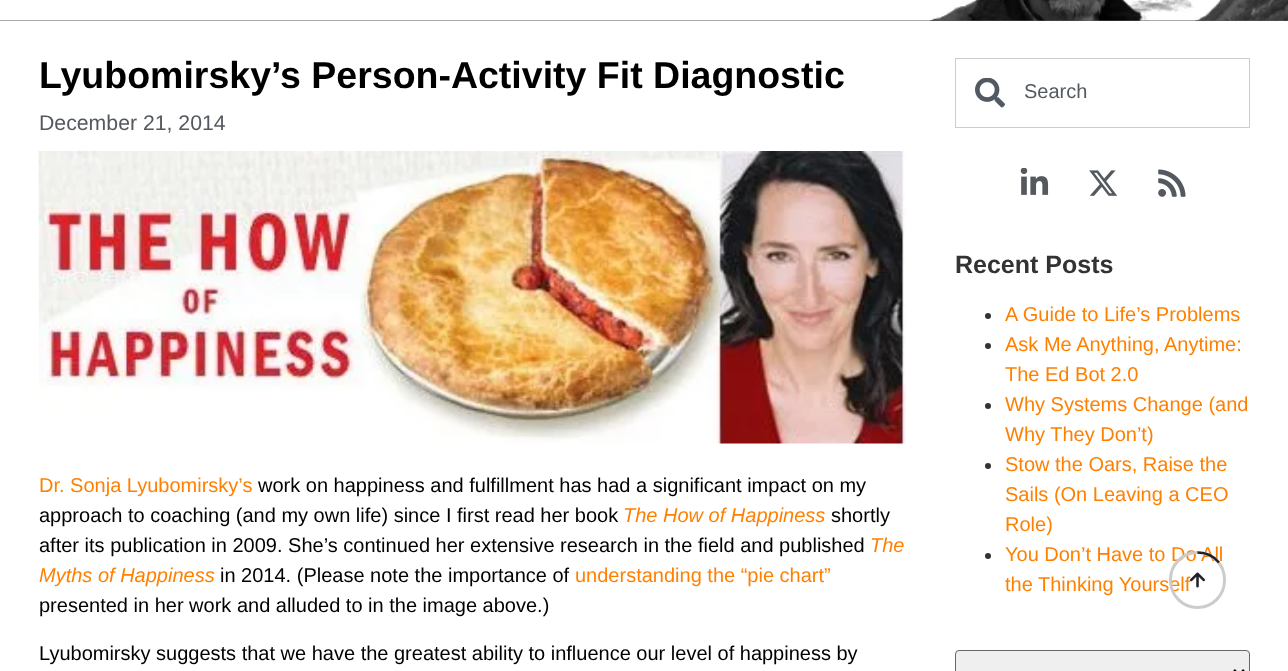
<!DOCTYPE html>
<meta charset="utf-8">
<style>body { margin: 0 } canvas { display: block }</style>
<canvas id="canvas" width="1288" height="671"></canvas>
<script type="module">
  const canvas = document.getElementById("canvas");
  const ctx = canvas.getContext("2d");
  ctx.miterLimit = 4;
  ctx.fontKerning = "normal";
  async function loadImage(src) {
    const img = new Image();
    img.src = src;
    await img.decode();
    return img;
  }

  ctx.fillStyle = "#ffffff";
  ctx.fillRect(0, 0, 1288, 671);
  ctx.drawImage(await loadImage("img1.png"), 929, 0, 359, 21);
  ctx.fillStyle = "rgba(84, 89, 95, 0.5)";
  ctx.fillRect(0, 20, 1288, 1);
  ctx.font = "bold 37.5px Liberation Sans";
  ctx.fillStyle = "#000000";
  ctx.fillText("Lyubomirsky’s Person-Activity Fit Diagnostic", 39, 88);
  ctx.font = "21.25px Liberation Sans";
  ctx.fillStyle = "#54595f";
  ctx.fillText("December 21, 2014", 39, 130);
  ctx.drawImage(await loadImage("img2.png"), 38, 151, 868, 293);
  ctx.font = "20px Liberation Sans";
  ctx.fillStyle = "#ff8000";
  ctx.fillText("Dr. Sonja Lyubomirsky’s", 39, 492);
  ctx.fillStyle = "#000000";
  ctx.fillText("work on happiness and fulfillment has had a significant impact on my", 258, 492);
  ctx.fillText("approach to coaching (and my own life) since I first read her book", 39, 522);
  ctx.font = "italic 20px Liberation Sans";
  ctx.fillStyle = "#ff8000";
  ctx.fillText("The How of Happiness", 623, 522);
  ctx.font = "20px Liberation Sans";
  ctx.fillStyle = "#000000";
  ctx.fillText("shortly", 831, 522);
  ctx.fillText("after its publication in 2009. She’s continued her extensive research in the field and published", 39, 552);
  ctx.font = "italic 20px Liberation Sans";
  ctx.fillStyle = "#ff8000";
  ctx.fillText("The", 870, 552);
  ctx.fillText("Myths of Happiness", 39, 582);
  ctx.font = "20px Liberation Sans";
  ctx.fillStyle = "#000000";
  ctx.fillText("in 2014. (Please note the importance of", 220, 582);
  ctx.fillStyle = "#ff8000";
  ctx.fillText("understanding the “pie chart”", 575, 582);
  ctx.fillStyle = "#000000";
  ctx.fillText("presented in her work and alluded to in the image above.)", 39, 612);
  ctx.fillText("Lyubomirsky suggests that we have the greatest ability to influence our level of happiness by", 39, 660);
  ctx.strokeStyle = "#cdcdcd";
  ctx.strokeRect(955.5, 58.5, 294, 69);
  ctx.drawImage(await loadImage("img3.png"), 975, 78, 30, 30);
  ctx.fillStyle = "#54595f";
  ctx.fillText("Search", 1024, 98);
  ctx.drawImage(await loadImage("img4.png"), 1020, 168, 29, 27);
  ctx.drawImage(await loadImage("img5.png"), 1089, 170, 29, 26);
  ctx.drawImage(await loadImage("img6.png"), 1158, 169, 28, 28);
  ctx.font = "bold 25px Liberation Sans";
  ctx.fillStyle = "#333333";
  ctx.fillText("Recent Posts", 955, 273);
  ctx.beginPath();
  ctx.arc(988, 316, 3, 0, Math.PI * 2);
  ctx.fill();
  ctx.font = "20px Liberation Sans";
  ctx.fillStyle = "#ff8000";
  ctx.fillText("A Guide to Life’s Problems", 1005, 321);
  ctx.fillStyle = "#333333";
  ctx.beginPath();
  ctx.arc(988, 346, 3, 0, Math.PI * 2);
  ctx.fill();
  ctx.fillStyle = "#ff8000";
  ctx.fillText("Ask Me Anything, Anytime:", 1005, 351);
  ctx.fillText("The Ed Bot 2.0", 1005, 381);
  ctx.fillStyle = "#333333";
  ctx.beginPath();
  ctx.arc(988, 406, 3, 0, Math.PI * 2);
  ctx.fill();
  ctx.fillStyle = "#ff8000";
  ctx.fillText("Why Systems Change (and", 1005, 411);
  ctx.fillText("Why They Don’t)", 1005, 441);
  ctx.fillStyle = "#333333";
  ctx.beginPath();
  ctx.arc(988, 466, 3, 0, Math.PI * 2);
  ctx.fill();
  ctx.fillStyle = "#ff8000";
  ctx.fillText("Stow the Oars, Raise the", 1005, 471);
  ctx.fillText("Sails (On Leaving a CEO", 1005, 501);
  ctx.fillText("Role)", 1005, 531);
  ctx.fillStyle = "#333333";
  ctx.beginPath();
  ctx.arc(988, 556, 3, 0, Math.PI * 2);
  ctx.fill();
  ctx.fillStyle = "#ff8000";
  ctx.fillText("You Don’t Have to Do All", 1005, 561);
  ctx.fillText("the Thinking Yourself", 1005, 591);
  ctx.fillStyle = "#efefef";
  ctx.beginPath();
  ctx.roundRect(955.5, 650.5, 294, 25, 3.5);
  ctx.fill();
  ctx.strokeStyle = "#666666";
  ctx.stroke();
  ctx.beginPath();
  ctx.moveTo(1234, 670);
  ctx.lineTo(1239, 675);
  ctx.lineTo(1244, 670);
  ctx.strokeStyle = "#000000";
  ctx.lineWidth = 2.5;
  ctx.stroke();
  ctx.beginPath();
  ctx.roundRect(1170.5, 552.5, 54, 55, 27);
  ctx.strokeStyle = "#cccccc";
  ctx.lineWidth = 3;
  ctx.stroke();
  ctx.beginPath();
  ctx.moveTo(1197.5, 552.5);
  ctx.bezierCurveTo(1206, 552.5, 1214, 556.5, 1219, 562.5);
  ctx.strokeStyle = "#1f2029";
  ctx.lineWidth = 2.3;
  ctx.stroke();
  ctx.drawImage(await loadImage("img7.png"), 1190, 572, 15, 16);
</script>
